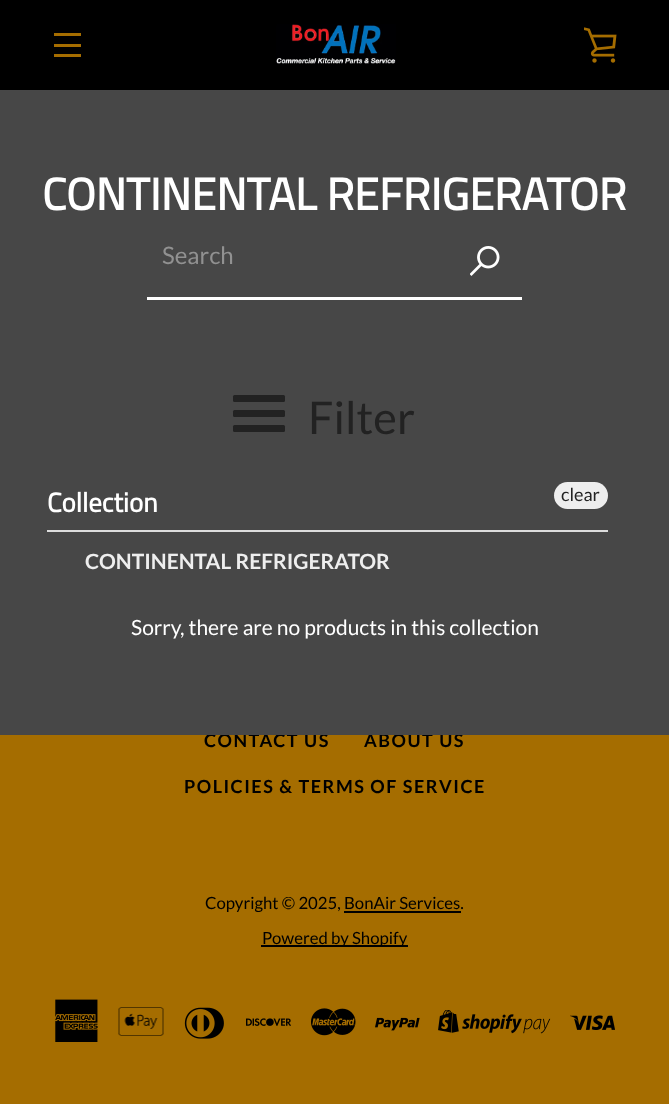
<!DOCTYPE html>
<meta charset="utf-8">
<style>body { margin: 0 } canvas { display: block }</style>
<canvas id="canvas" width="669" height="1104"></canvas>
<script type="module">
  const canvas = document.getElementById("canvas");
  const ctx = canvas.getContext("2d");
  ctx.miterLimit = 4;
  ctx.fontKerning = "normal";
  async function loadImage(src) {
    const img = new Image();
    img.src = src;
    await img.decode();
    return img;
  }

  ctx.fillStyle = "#a56d00";
  ctx.fillRect(0, 0, 669, 1104);
  ctx.fillStyle = "#000000";
  ctx.fillRect(0, 0, 669, 90);
  ctx.fillStyle = "#a56d00";
  ctx.fillRect(54, 33, 27, 3);
  ctx.fillRect(54, 44, 27, 3);
  ctx.fillRect(54, 54, 27, 3);
  ctx.drawImage(await loadImage("img1.png"), 276, 24, 120, 40);
  ctx.drawImage(await loadImage("img2.png"), 584, 27, 33, 36);
  ctx.letterSpacing = "1.5px";
  ctx.font = "bold 18px Lato";
  ctx.fillStyle = "#000000";
  ctx.fillText("CONTACT US", 204, 747);
  ctx.fillText("ABOUT US", 364, 747);
  ctx.fillStyle = "#474747";
  ctx.fillRect(0, 90, 669, 645);
  ctx.letterSpacing = "0px";
  ctx.font = "bold 45px Titillium Web";
  ctx.fillStyle = "#ffffff";
  ctx.fillText("CONTINENTAL REFRIGERATOR", 42, 210);
  ctx.fillRect(147, 297, 375, 3);
  ctx.font = "24px Lato";
  ctx.fillStyle = "#919191";
  ctx.fillText("Search", 162, 264);
  ctx.drawImage(await loadImage("img3.png"), 470, 246, 30, 30);
  ctx.fillStyle = "#222222";
  ctx.beginPath();
  ctx.roundRect(233, 410, 52, 7, 1.5);
  ctx.fill();
  ctx.beginPath();
  ctx.roundRect(233, 395, 52, 7, 1.5);
  ctx.fill();
  ctx.beginPath();
  ctx.roundRect(233, 425, 52, 7, 1.5);
  ctx.fill();
  ctx.font = "45px Lato";
  ctx.fillText("Filter", 308, 434);
  ctx.fillStyle = "#dddddd";
  ctx.fillRect(47, 530, 561, 2);
  ctx.font = "bold 27px Titillium Web";
  ctx.fillStyle = "#ffffff";
  ctx.fillText("Collection", 47, 512);
  ctx.fillStyle = "#eeeeee";
  ctx.beginPath();
  ctx.roundRect(554, 482, 54, 27, 13.5);
  ctx.fill();
  ctx.font = "18px Lato";
  ctx.fillStyle = "#222222";
  ctx.fillText("clear", 561, 501);
  ctx.font = "bold 21px Lato";
  ctx.fillStyle = "#eeeeee";
  ctx.fillText("CONTINENTAL REFRIGERATOR", 85, 569);
  ctx.font = "21px Lato";
  ctx.fillStyle = "#ffffff";
  ctx.fillText("Sorry, there are no products in this collection", 131, 635);
  ctx.letterSpacing = "1.5px";
  ctx.font = "bold 18px Lato";
  ctx.fillStyle = "#000000";
  ctx.fillText("POLICIES & TERMS OF SERVICE", 184, 793);
  ctx.letterSpacing = "0px";
  ctx.font = "16.75px Lato";
  ctx.fillText("Copyright © 2025, BonAir Services.", 205, 909);
  ctx.fillRect(344, 911, 117, 2);
  ctx.fillRect(261, 945, 147, 2);
  ctx.fillText("Powered by Shopify", 262, 944);
  ctx.drawImage(await loadImage("img4.png"), 55, 999, 43, 43);
  ctx.drawImage(await loadImage("img5.png"), 118, 1007, 46, 29);
  ctx.drawImage(await loadImage("img6.png"), 184, 1007, 40, 32);
  ctx.drawImage(await loadImage("img7.png"), 246, 1018, 45, 8);
  ctx.drawImage(await loadImage("img8.png"), 311, 1008, 45, 28);
  ctx.drawImage(await loadImage("img9.png"), 375, 1017, 45, 14);
  ctx.drawImage(await loadImage("img10.png"), 438, 1010, 113, 24);
  ctx.drawImage(await loadImage("img11.png"), 570, 1015, 45, 15);
</script>
